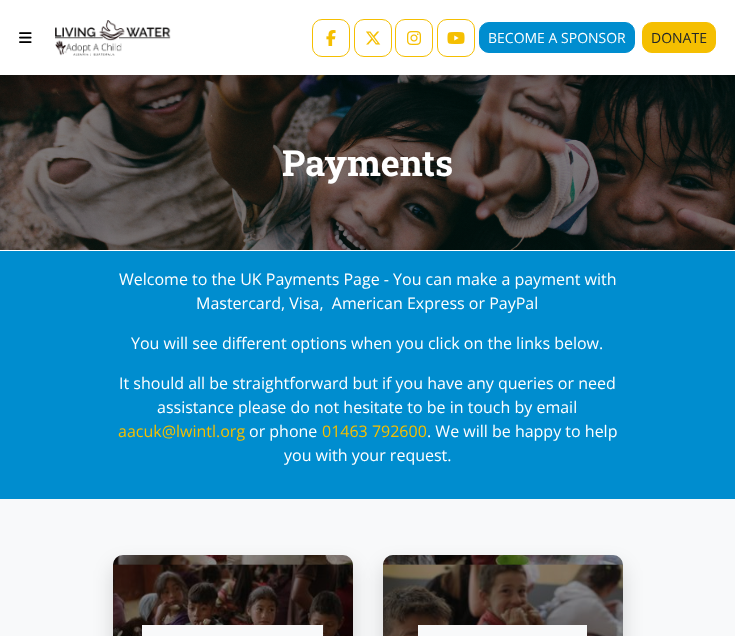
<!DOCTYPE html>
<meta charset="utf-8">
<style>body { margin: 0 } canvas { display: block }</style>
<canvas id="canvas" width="735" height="636"></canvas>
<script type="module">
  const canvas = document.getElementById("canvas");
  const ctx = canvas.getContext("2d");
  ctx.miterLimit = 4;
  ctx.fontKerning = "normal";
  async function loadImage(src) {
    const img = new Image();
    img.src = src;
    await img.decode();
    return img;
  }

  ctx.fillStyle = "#ffffff";
  ctx.fillRect(0, 0, 735, 636);
  ctx.drawImage(await loadImage("img7.png"), 0, 75, 735, 175);
  ctx.fillStyle = "rgba(0, 0, 0, 0.4)";
  ctx.filter = "blur(15px)";
  ctx.beginPath();
  ctx.rect(0, 0, 735, 75);
  ctx.fill();
  ctx.filter = "none";
  ctx.fillStyle = "#ffffff";
  ctx.fillRect(0, 0, 735, 75);
  ctx.drawImage(await loadImage("img1.png"), 19, 32, 13, 11);
  ctx.drawImage(await loadImage("img2.png"), 55, 20, 116, 36);
  ctx.beginPath();
  ctx.roundRect(312.5, 19.5, 37, 37, 9.5);
  ctx.strokeStyle = "#f5bf01";
  ctx.stroke();
  ctx.drawImage(await loadImage("img3.png"), 326, 30, 10, 16);
  ctx.beginPath();
  ctx.roundRect(354.5, 19.5, 37, 37, 9.5);
  ctx.stroke();
  ctx.drawImage(await loadImage("img4.png"), 366, 31, 15, 14);
  ctx.beginPath();
  ctx.roundRect(395.5, 19.5, 37, 37, 9.5);
  ctx.stroke();
  ctx.drawImage(await loadImage("img5.png"), 407, 31, 14, 14);
  ctx.beginPath();
  ctx.roundRect(437.5, 19.5, 37, 37, 9.5);
  ctx.stroke();
  ctx.drawImage(await loadImage("img6.png"), 447, 32, 18, 12);
  ctx.fillStyle = "#008dcf";
  ctx.beginPath();
  ctx.roundRect(479.5, 22.5, 155, 30, 9.5);
  ctx.fill();
  ctx.strokeStyle = "#008dcf";
  ctx.stroke();
  ctx.font = "14px Open Sans";
  ctx.fillStyle = "#ffffff";
  ctx.fillText("BECOME A SPONSOR", 488, 43);
  ctx.fillStyle = "#f5bf01";
  ctx.beginPath();
  ctx.roundRect(642.5, 22.5, 73, 30, 9.5);
  ctx.fill();
  ctx.strokeStyle = "#f5bf01";
  ctx.stroke();
  ctx.fillStyle = "#212529";
  ctx.fillText("DONATE", 651, 43);
  ctx.font = "bold 36px Roboto Slab";
  ctx.fillStyle = "#ffffff";
  ctx.fillText("Payments", 282, 176);
  ctx.fillStyle = "#008dcf";
  ctx.fillRect(0, 251, 735, 248);
  ctx.font = "16px Open Sans";
  ctx.fillStyle = "#ffffff";
  ctx.fillText("Welcome to the UK Payments Page - You can make a payment with", 119, 285);
  ctx.fillText("Mastercard, Visa,  American Express or PayPal", 196, 309);
  ctx.fillText("You will see different options when you click on the links below.", 131, 349);
  ctx.fillText("It should all be straightforward but if you have any queries or need", 119, 389);
  ctx.fillText("assistance please do not hesitate to be in touch by email", 157, 413);
  ctx.fillStyle = "#f5bf01";
  ctx.fillText("aacuk@lwintl.org", 118, 437);
  ctx.fillStyle = "#ffffff";
  ctx.fillText("or phone", 249, 437);
  ctx.fillStyle = "#f5bf01";
  ctx.fillText("01463 792600", 322, 437);
  ctx.fillStyle = "#ffffff";
  ctx.fillText(". We will be happy to help", 427, 437);
  ctx.fillText("you with your request.", 284, 461);
  ctx.fillStyle = "#f8f9fa";
  ctx.fillRect(0, 499, 735, 137);
  ctx.fillStyle = "rgba(0, 0, 0, 0.15)";
  ctx.filter = "blur(10px)";
  ctx.beginPath();
  ctx.roundRect(113, 565, 240, 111, 10);
  ctx.fill();
  ctx.filter = "none";
  ctx.drawImage(await loadImage("img8.png"), 113, 555, 240, 81);
  ctx.filter = "blur(10px)";
  ctx.beginPath();
  ctx.roundRect(383, 565, 240, 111, 10);
  ctx.fill();
  ctx.filter = "none";
  ctx.fillStyle = "rgba(0, 0, 0, 0.45)";
  ctx.beginPath();
  ctx.roundRect(113, 555, 240, 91, 10);
  ctx.fill();
  ctx.fillStyle = "#f8f9fa";
  ctx.fillRect(142, 625, 181, 11);
  ctx.drawImage(await loadImage("img9.png"), 383, 555, 240, 81);
  ctx.fillStyle = "rgba(0, 0, 0, 0.45)";
  ctx.beginPath();
  ctx.roundRect(383, 555, 240, 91, 10);
  ctx.fill();
  ctx.fillStyle = "#f8f9fa";
  ctx.fillRect(418, 625, 169, 11);
</script>
